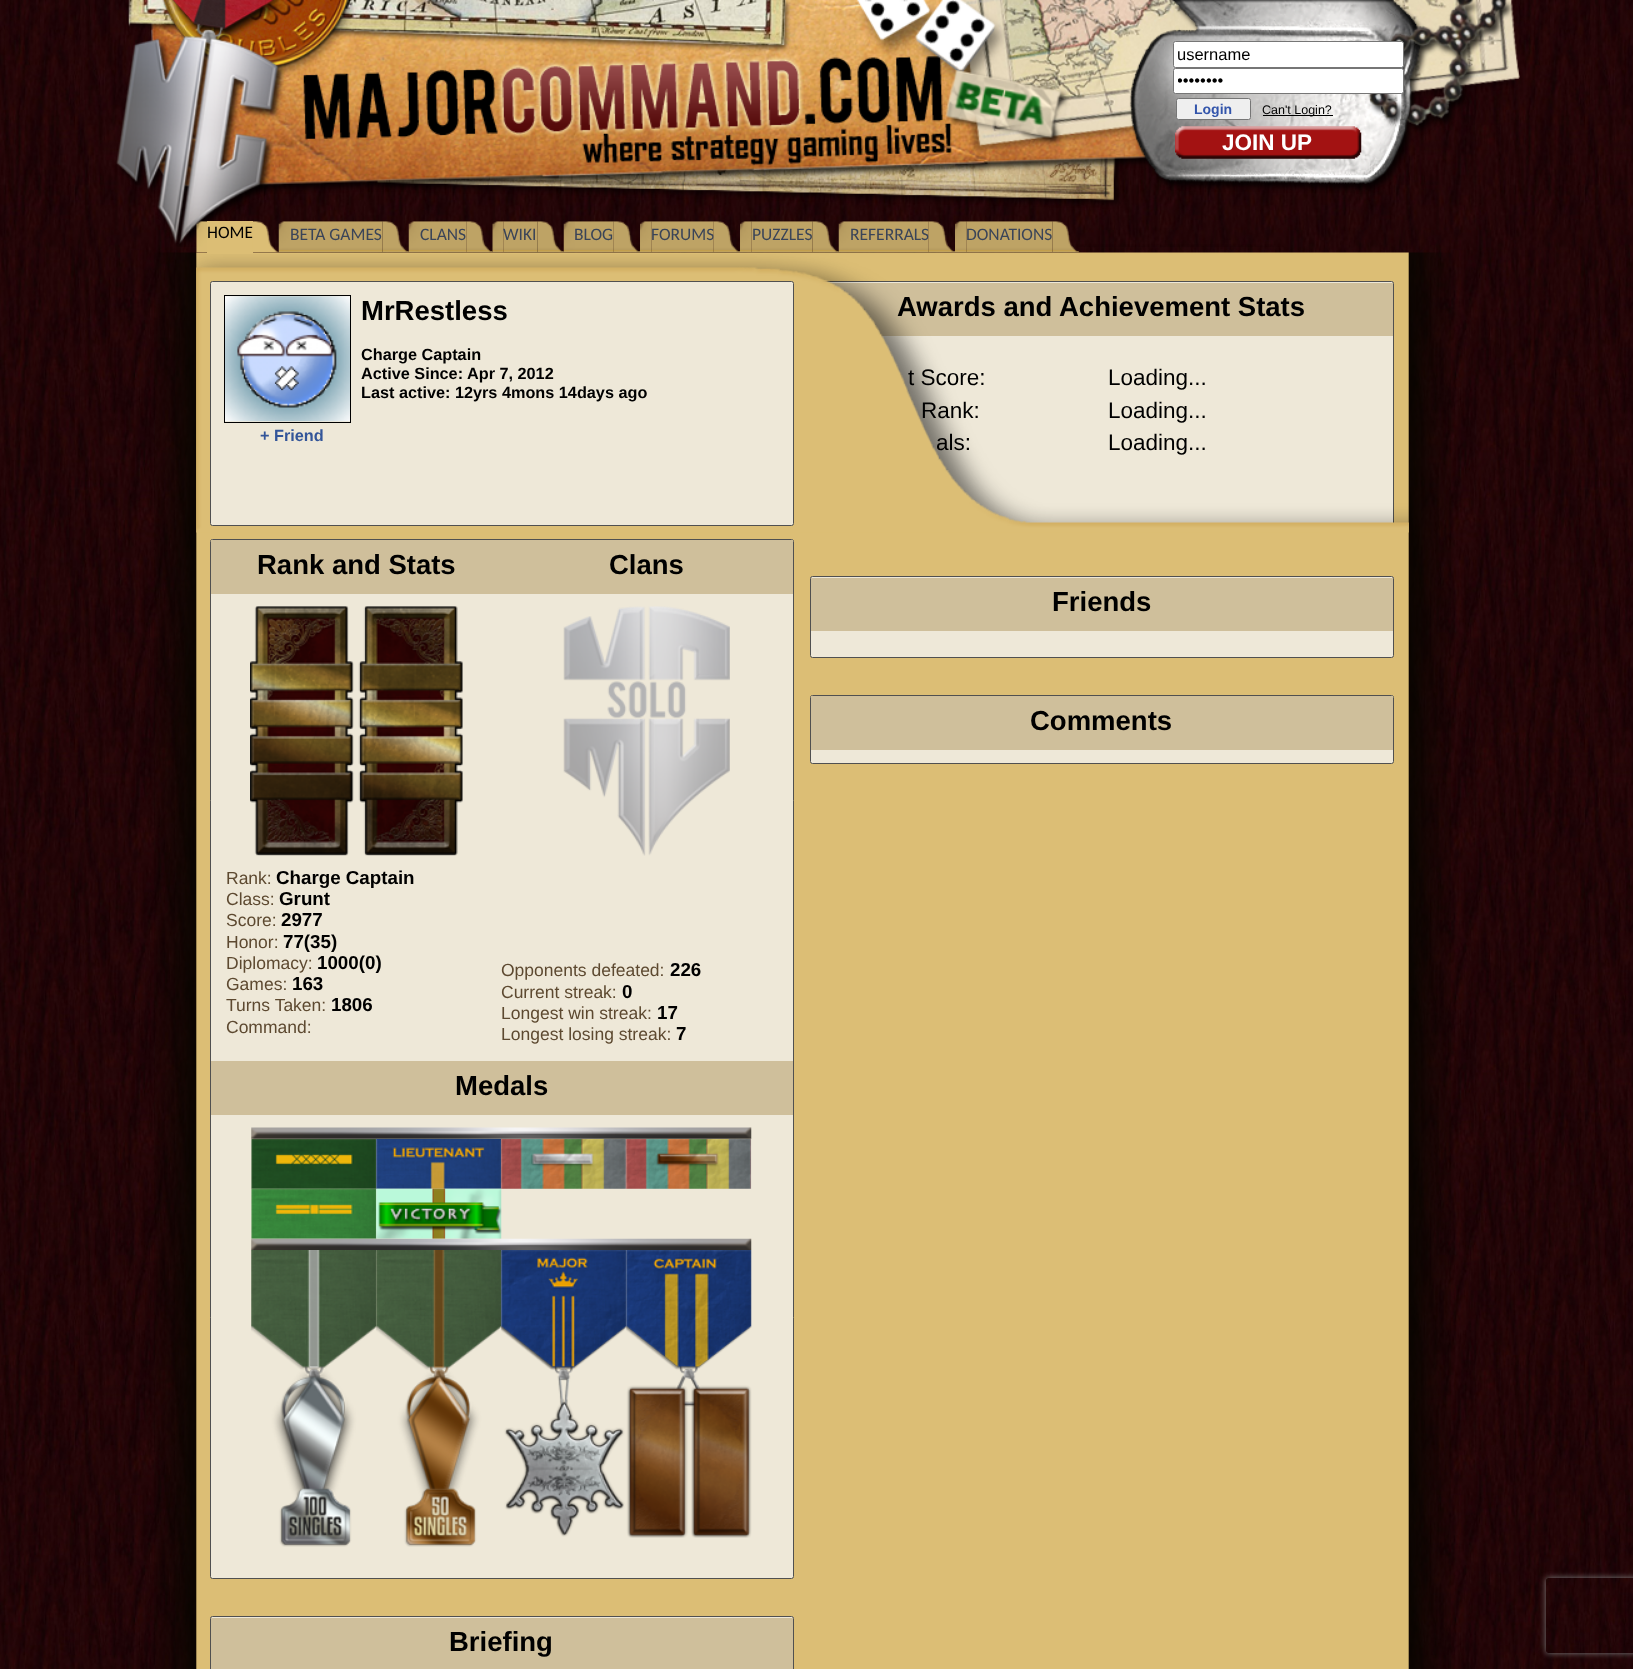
<!DOCTYPE html>
<meta charset="utf-8">
<style>body { margin: 0 } canvas { display: block }</style>
<canvas id="canvas" width="1633" height="1669"></canvas>
<script type="module">
  const canvas = document.getElementById("canvas");
  const ctx = canvas.getContext("2d");
  ctx.miterLimit = 4;
  ctx.fontKerning = "normal";
  async function loadImage(src) {
    const img = new Image();
    img.src = src;
    await img.decode();
    return img;
  }

  ctx.fillStyle = "#ffffff";
  ctx.fillRect(0, 0, 1633, 1669);
  ctx.drawImage(await loadImage("img1.png"), 0, 0, 1633, 1669);
  ctx.drawImage(await loadImage("img2.png"), 116, 0, 1404, 247);
  ctx.beginPath();
  ctx.roundRect(1173.5, 41.5, 230, 26, 2);
  ctx.fill();
  ctx.strokeStyle = "#767676";
  ctx.stroke();
  ctx.font = "16.5px Liberation Sans";
  ctx.fillStyle = "#000000";
  ctx.fillText("username", 1177, 60);
  ctx.fillStyle = "#ffffff";
  ctx.beginPath();
  ctx.roundRect(1173.5, 68.5, 230, 25, 2);
  ctx.fill();
  ctx.stroke();
  ctx.save();
  ctx.beginPath();
  ctx.rect(1178, 71, 221, 19);
  ctx.clip();
  ctx.fillStyle = "#000000";
  ctx.fillText("••••••••", 1177, 86);
  ctx.restore();
  ctx.fillStyle = "#efefef";
  ctx.beginPath();
  ctx.roundRect(1176.5, 98.5, 74, 21, 2);
  ctx.fill();
  ctx.stroke();
  ctx.font = "bold 14px Liberation Sans";
  ctx.fillStyle = "#3355ab";
  ctx.fillText("Login", 1194, 114);
  ctx.fillStyle = "#000000";
  ctx.fillRect(1263, 115, 70, 1);
  ctx.font = "12.5px Liberation Sans";
  ctx.fillText("Can't Login?", 1262, 114);
  ctx.drawImage(await loadImage("img3.png"), 1175, 126, 187, 33);
  ctx.font = "bold 22.5px Liberation Sans";
  ctx.fillStyle = "#ffffff";
  ctx.fillText("JOIN UP", 1222, 150);
  ctx.drawImage(await loadImage("img30.png"), 154, 252, 1297, 1417);
  ctx.drawImage(await loadImage("img4.png"), 196, 221, 11, 32);
  ctx.fillStyle = "#dcbe75";
  ctx.fillRect(207, 221, 46, 32);
  ctx.font = "17.5px Carlito";
  ctx.fillStyle = "#000000";
  ctx.fillText("HOME", 207, 238);
  ctx.drawImage(await loadImage("img5.png"), 252, 221, 27, 32);
  ctx.drawImage(await loadImage("img6.png"), 278, 221, 12, 32);
  ctx.drawImage(await loadImage("img7.png"), 290, 221, 93, 32);
  ctx.fillStyle = "#3a4458";
  ctx.fillText("BETA GAMES", 290, 240);
  ctx.drawImage(await loadImage("img8.png"), 382, 221, 27, 32);
  ctx.drawImage(await loadImage("img9.png"), 408, 221, 12, 32);
  ctx.drawImage(await loadImage("img10.png"), 420, 221, 47, 32);
  ctx.fillText("CLANS", 420, 240);
  ctx.drawImage(await loadImage("img11.png"), 466, 221, 27, 32);
  ctx.drawImage(await loadImage("img12.png"), 492, 221, 12, 32);
  ctx.drawImage(await loadImage("img13.png"), 503, 221, 35, 32);
  ctx.fillText("WIKI", 503, 240);
  ctx.drawImage(await loadImage("img14.png"), 537, 221, 27, 32);
  ctx.drawImage(await loadImage("img15.png"), 563, 221, 12, 32);
  ctx.drawImage(await loadImage("img16.png"), 575, 221, 39, 32);
  ctx.fillText("BLOG", 574, 240);
  ctx.drawImage(await loadImage("img17.png"), 613, 221, 27, 32);
  ctx.drawImage(await loadImage("img18.png"), 640, 221, 12, 32);
  ctx.drawImage(await loadImage("img19.png"), 651, 221, 63, 32);
  ctx.fillText("FORUMS", 651, 240);
  ctx.drawImage(await loadImage("img20.png"), 713, 221, 27, 32);
  ctx.drawImage(await loadImage("img21.png"), 740, 221, 12, 32);
  ctx.drawImage(await loadImage("img22.png"), 751, 221, 62, 32);
  ctx.fillText("PUZZLES", 752, 240);
  ctx.drawImage(await loadImage("img23.png"), 812, 221, 27, 32);
  ctx.drawImage(await loadImage("img24.png"), 838, 221, 12, 32);
  ctx.drawImage(await loadImage("img25.png"), 850, 221, 79, 32);
  ctx.fillText("REFERRALS", 850, 240);
  ctx.drawImage(await loadImage("img26.png"), 928, 221, 27, 32);
  ctx.drawImage(await loadImage("img27.png"), 955, 221, 12, 32);
  ctx.drawImage(await loadImage("img28.png"), 966, 221, 87, 32);
  ctx.fillText("DONATIONS", 966, 240);
  ctx.drawImage(await loadImage("img29.png"), 1052, 221, 27, 32);
  ctx.fillStyle = "#eee8d8";
  ctx.beginPath();
  ctx.roundRect(810.5, 281.5, 583, 244, 2);
  ctx.fill();
  ctx.strokeStyle = "#505050";
  ctx.stroke();
  ctx.fillStyle = "#cfbf9b";
  ctx.fillRect(826, 283, 567, 53);
  ctx.font = "bold 27.5px Liberation Sans";
  ctx.fillStyle = "#000000";
  ctx.fillText("Awards and Achievement Stats", 897, 316);
  ctx.font = "22.5px Liberation Sans";
  ctx.fillText("t Score:", 908, 385);
  ctx.fillText("Loading...", 1108, 385);
  ctx.fillText("Rank:", 921, 418);
  ctx.fillText("Loading...", 1108, 418);
  ctx.fillText("als:", 936, 450);
  ctx.fillText("Loading...", 1108, 450);
  ctx.drawImage(await loadImage("img31.png"), 196, 254, 1213, 279);
  ctx.fillStyle = "#eee8d8";
  ctx.beginPath();
  ctx.roundRect(210.5, 281.5, 583, 244, 2);
  ctx.fill();
  ctx.stroke();
  ctx.font = "bold 27.5px Liberation Sans";
  ctx.fillStyle = "#000000";
  ctx.fillText("MrRestless", 361, 320);
  ctx.font = "bold 16.25px Liberation Sans";
  ctx.fillText("Charge Captain", 361, 360);
  ctx.fillText("Active Since: Apr 7, 2012", 361, 379);
  ctx.fillText("Last active: 12yrs 4mons 14days ago", 361, 398);
  ctx.strokeStyle = "#000000";
  ctx.strokeRect(224.5, 295.5, 126, 127);
  ctx.drawImage(await loadImage("img32.png"), 225, 296, 125, 126);
  ctx.fillStyle = "#335599";
  ctx.fillText("+ Friend", 260, 441);
  ctx.fillStyle = "#eee8d8";
  ctx.beginPath();
  ctx.roundRect(210.5, 539.5, 583, 1039, 2);
  ctx.fill();
  ctx.strokeStyle = "#505050";
  ctx.stroke();
  ctx.fillStyle = "#cfbf9b";
  ctx.fillRect(211, 540, 582, 54);
  ctx.font = "bold 27.5px Liberation Sans";
  ctx.fillStyle = "#000000";
  ctx.fillText("Rank and Stats", 257, 574);
  ctx.drawImage(await loadImage("img33.png"), 250, 606, 213, 250);
  ctx.font = "17.5px Liberation Sans";
  ctx.fillStyle = "#5d4930";
  ctx.fillText("Rank:", 226, 884);
  ctx.font = "bold 18.75px Liberation Sans";
  ctx.fillStyle = "#000000";
  ctx.fillText("Charge Captain", 276, 884);
  ctx.font = "17.5px Liberation Sans";
  ctx.fillStyle = "#5d4930";
  ctx.fillText("Class:", 226, 905);
  ctx.font = "bold 18.75px Liberation Sans";
  ctx.fillStyle = "#000000";
  ctx.fillText("Grunt", 279, 905);
  ctx.font = "17.5px Liberation Sans";
  ctx.fillStyle = "#5d4930";
  ctx.fillText("Score:", 226, 926);
  ctx.font = "bold 18.75px Liberation Sans";
  ctx.fillStyle = "#000000";
  ctx.fillText("2977", 281, 926);
  ctx.font = "17.5px Liberation Sans";
  ctx.fillStyle = "#5d4930";
  ctx.fillText("Honor:", 226, 948);
  ctx.font = "bold 18.75px Liberation Sans";
  ctx.fillStyle = "#000000";
  ctx.fillText("77(35)", 283, 948);
  ctx.font = "17.5px Liberation Sans";
  ctx.fillStyle = "#5d4930";
  ctx.fillText("Diplomacy:", 226, 969);
  ctx.font = "bold 18.75px Liberation Sans";
  ctx.fillStyle = "#000000";
  ctx.fillText("1000(0)", 317, 969);
  ctx.font = "17.5px Liberation Sans";
  ctx.fillStyle = "#5d4930";
  ctx.fillText("Games:", 226, 990);
  ctx.font = "bold 18.75px Liberation Sans";
  ctx.fillStyle = "#000000";
  ctx.fillText("163", 292, 990);
  ctx.font = "17.5px Liberation Sans";
  ctx.fillStyle = "#5d4930";
  ctx.fillText("Turns Taken:", 226, 1011);
  ctx.font = "bold 18.75px Liberation Sans";
  ctx.fillStyle = "#000000";
  ctx.fillText("1806", 331, 1011);
  ctx.font = "17.5px Liberation Sans";
  ctx.fillStyle = "#5d4930";
  ctx.fillText("Command:", 226, 1033);
  ctx.font = "bold 27.5px Liberation Sans";
  ctx.fillStyle = "#000000";
  ctx.fillText("Clans", 609, 574);
  ctx.drawImage(await loadImage("img34.png"), 563, 606, 167, 250);
  ctx.font = "17.5px Liberation Sans";
  ctx.fillStyle = "#5d4930";
  ctx.fillText("Opponents defeated:", 501, 976);
  ctx.font = "bold 18.75px Liberation Sans";
  ctx.fillStyle = "#000000";
  ctx.fillText("226", 670, 976);
  ctx.font = "17.5px Liberation Sans";
  ctx.fillStyle = "#5d4930";
  ctx.fillText("Current streak:", 501, 998);
  ctx.font = "bold 18.75px Liberation Sans";
  ctx.fillStyle = "#000000";
  ctx.fillText("0", 622, 998);
  ctx.font = "17.5px Liberation Sans";
  ctx.fillStyle = "#5d4930";
  ctx.fillText("Longest win streak:", 501, 1019);
  ctx.font = "bold 18.75px Liberation Sans";
  ctx.fillStyle = "#000000";
  ctx.fillText("17", 657, 1019);
  ctx.font = "17.5px Liberation Sans";
  ctx.fillStyle = "#5d4930";
  ctx.fillText("Longest losing streak:", 501, 1040);
  ctx.font = "bold 18.75px Liberation Sans";
  ctx.fillStyle = "#000000";
  ctx.fillText("7", 676, 1040);
  ctx.fillStyle = "#cfbf9b";
  ctx.fillRect(211, 1061, 582, 54);
  ctx.font = "bold 27.5px Liberation Sans";
  ctx.fillStyle = "#000000";
  ctx.fillText("Medals", 455, 1095);
  ctx.drawImage(await loadImage("img35.png"), 251, 1127, 501, 12);
  ctx.drawImage(await loadImage("img36.png"), 251, 1138, 126, 51);
  ctx.drawImage(await loadImage("img37.png"), 376, 1138, 126, 51);
  ctx.drawImage(await loadImage("img38.png"), 501, 1138, 126, 51);
  ctx.drawImage(await loadImage("img39.png"), 626, 1138, 126, 51);
  ctx.drawImage(await loadImage("img42.png"), 251, 1238, 501, 12);
  ctx.drawImage(await loadImage("img40.png"), 251, 1188, 126, 51);
  ctx.drawImage(await loadImage("img41.png"), 376, 1188, 126, 51);
  ctx.drawImage(await loadImage("img43.png"), 251, 1250, 126, 297);
  ctx.drawImage(await loadImage("img44.png"), 376, 1250, 126, 297);
  ctx.drawImage(await loadImage("img45.png"), 501, 1250, 126, 287);
  ctx.drawImage(await loadImage("img46.png"), 626, 1250, 126, 288);
  ctx.fillStyle = "#eee8d8";
  ctx.beginPath();
  ctx.roundRect(210.5, 1616.5, 583, 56, 2);
  ctx.fill();
  ctx.stroke();
  ctx.fillStyle = "#cfbf9b";
  ctx.fillRect(211, 1618, 582, 51);
  ctx.fillStyle = "#000000";
  ctx.fillText("Briefing", 449, 1651);
  ctx.fillStyle = "#eee8d8";
  ctx.beginPath();
  ctx.roundRect(810.5, 576.5, 583, 81, 2);
  ctx.fill();
  ctx.stroke();
  ctx.fillStyle = "#cfbf9b";
  ctx.fillRect(811, 578, 582, 53);
  ctx.fillStyle = "#000000";
  ctx.fillText("Friends", 1052, 611);
  ctx.fillStyle = "#eee8d8";
  ctx.beginPath();
  ctx.roundRect(810.5, 695.5, 583, 68, 2);
  ctx.fill();
  ctx.stroke();
  ctx.fillStyle = "#cfbf9b";
  ctx.fillRect(811, 696, 582, 54);
  ctx.fillStyle = "#000000";
  ctx.fillText("Comments", 1030, 730);
  ctx.save();
  ctx.beginPath();
  ctx.moveTo(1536, 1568);
  ctx.lineTo(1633, 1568);
  ctx.lineTo(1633, 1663);
  ctx.lineTo(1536, 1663);
  ctx.closePath();
  ctx.moveTo(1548.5, 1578);
  ctx.lineTo(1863.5, 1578);
  ctx.bezierCurveTo(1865, 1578, 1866, 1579, 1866, 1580.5);
  ctx.lineTo(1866, 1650.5);
  ctx.bezierCurveTo(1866, 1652, 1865, 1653, 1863.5, 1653);
  ctx.lineTo(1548.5, 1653);
  ctx.bezierCurveTo(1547, 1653, 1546, 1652, 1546, 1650.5);
  ctx.lineTo(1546, 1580.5);
  ctx.bezierCurveTo(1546, 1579, 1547, 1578, 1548.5, 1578);
  ctx.closePath();
  ctx.clip("evenodd");
  ctx.fillStyle = "#808080";
  ctx.filter = "blur(3px)";
  ctx.beginPath();
  ctx.roundRect(1546, 1578, 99, 75, 2.5);
  ctx.fill();
  ctx.filter = "none";
  ctx.restore();
</script>
